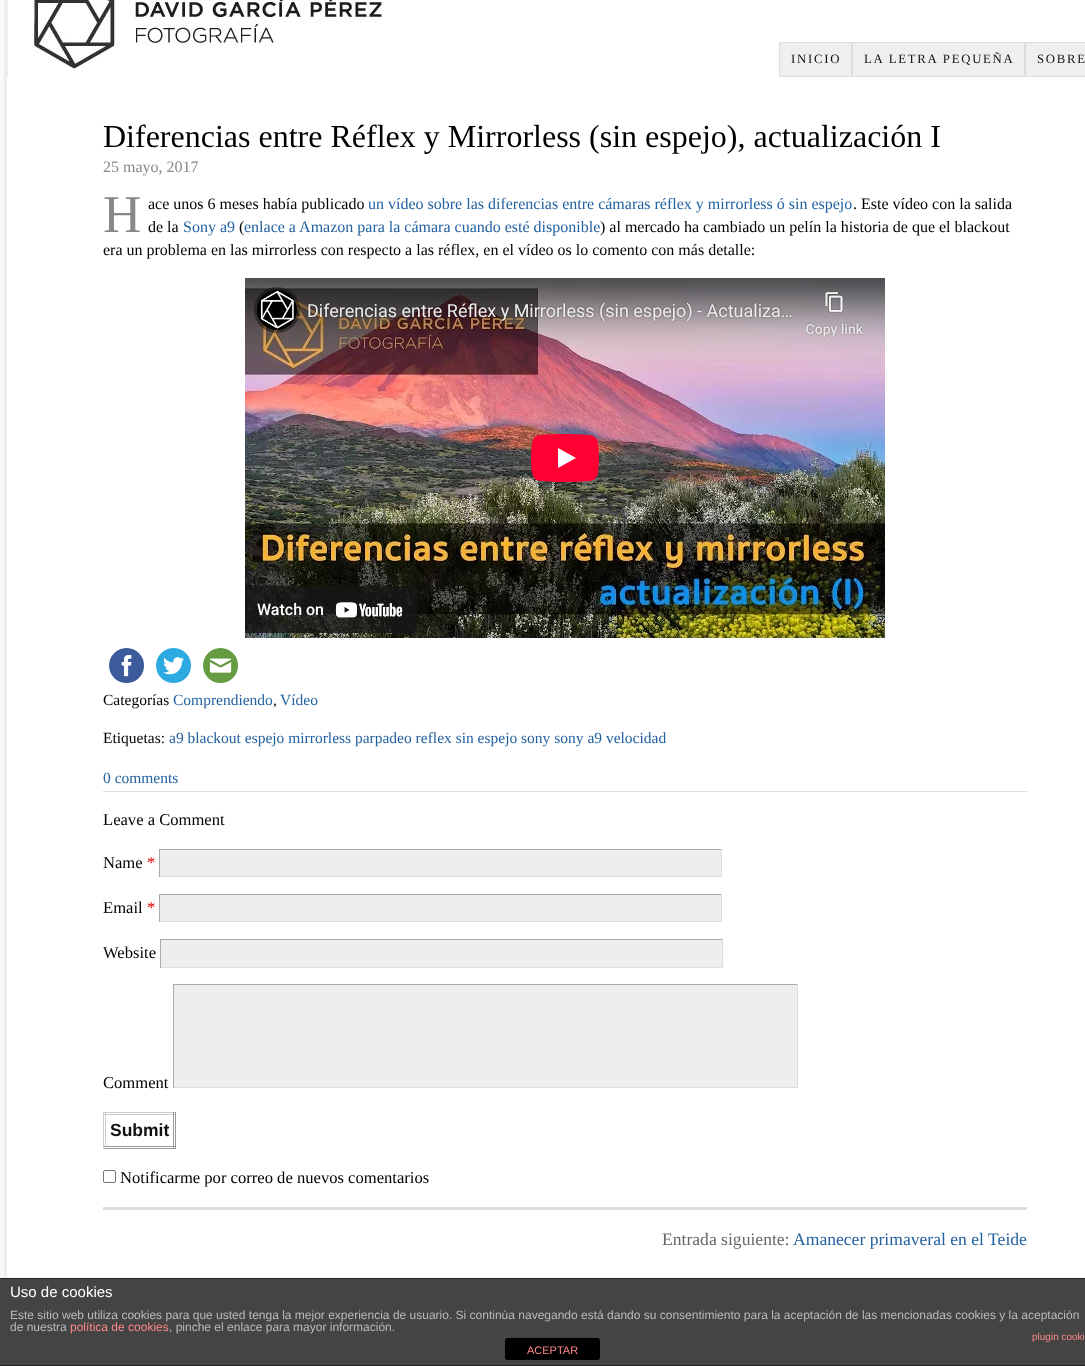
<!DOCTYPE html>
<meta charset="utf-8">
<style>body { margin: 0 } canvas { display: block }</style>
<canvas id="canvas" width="1085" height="1366"></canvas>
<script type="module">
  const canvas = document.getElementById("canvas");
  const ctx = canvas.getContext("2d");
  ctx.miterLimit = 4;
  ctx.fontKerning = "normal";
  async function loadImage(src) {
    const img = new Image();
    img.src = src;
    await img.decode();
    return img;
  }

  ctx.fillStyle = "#ededed";
  ctx.fillRect(0, 0, 1085, 1366);
  ctx.fillStyle = "#f9f9f9";
  ctx.fillRect(0, 0, 4, 1278);
  ctx.fillStyle = "#ffffff";
  ctx.fillRect(8, 0, 1077, 77);
  ctx.drawImage(await loadImage("img1.png"), 32, 0, 352, 71);
  ctx.fillStyle = "#efefef";
  ctx.beginPath();
  ctx.rect(779.5, 42.5, 72, 34);
  ctx.fill();
  ctx.strokeStyle = "#dddddd";
  ctx.stroke();
  ctx.letterSpacing = "1.75px";
  ctx.font = "12.75px Liberation Serif";
  ctx.fillStyle = "#111111";
  ctx.fillText("INICIO", 791, 63);
  ctx.fillStyle = "#efefef";
  ctx.beginPath();
  ctx.rect(852.5, 42.5, 172, 34);
  ctx.fill();
  ctx.stroke();
  ctx.fillStyle = "#111111";
  ctx.fillText("LA LETRA PEQUEÑA", 864, 63);
  ctx.fillStyle = "#efefef";
  ctx.beginPath();
  ctx.rect(1025.5, 42.5, 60, 34);
  ctx.fill();
  ctx.stroke();
  ctx.fillStyle = "#111111";
  ctx.fillText("SOBRE", 1037, 63);
  ctx.fillStyle = "#ffffff";
  ctx.fillRect(7, 77, 1078, 1201);
  ctx.letterSpacing = "0px";
  ctx.font = "32px Liberation Serif";
  ctx.fillStyle = "#000000";
  ctx.fillText("Diferencias entre Réflex y Mirrorless (sin espejo), actualización I", 103, 147);
  ctx.font = "16px Liberation Serif";
  ctx.fillStyle = "#888888";
  ctx.fillText("25 mayo, 2017", 103, 172);
  ctx.font = "53px Liberation Serif";
  ctx.fillText("H", 103, 232);
  ctx.font = "16px Liberation Serif";
  ctx.fillStyle = "#000000";
  ctx.fillText("ace unos 6 meses había publicado", 148, 209);
  ctx.fillStyle = "#2361a1";
  ctx.fillText("un vídeo sobre las diferencias entre cámaras réflex y mirrorless ó sin espejo", 368, 209);
  ctx.fillStyle = "#000000";
  ctx.fillText(". Este vídeo con la salida", 853, 209);
  ctx.fillText("de la", 148, 232);
  ctx.fillStyle = "#2361a1";
  ctx.fillText("Sony a9", 183, 232);
  ctx.fillStyle = "#000000";
  ctx.fillText("(", 239, 232);
  ctx.fillStyle = "#2361a1";
  ctx.fillText("enlace a Amazon para la cámara cuando esté disponible", 244, 232);
  ctx.fillStyle = "#000000";
  ctx.fillText(") al mercado ha cambiado un pelín la historia de que el blackout", 600, 232);
  ctx.fillText("era un problema en las mirrorless con respecto a las réflex, en el vídeo os lo comento con más detalle:", 103, 255);
  ctx.drawImage(await loadImage("img2.png"), 245, 278, 640, 360);
  ctx.drawImage(await loadImage("img3.png"), 109, 648, 35, 35);
  ctx.drawImage(await loadImage("img4.png"), 156, 648, 35, 35);
  ctx.drawImage(await loadImage("img5.png"), 203, 648, 35, 35);
  ctx.fillStyle = "#dddddd";
  ctx.fillRect(103, 791, 924, 1);
  ctx.font = "15.5px Liberation Serif";
  ctx.fillStyle = "#000000";
  ctx.fillText("Categorías", 103, 705);
  ctx.fillStyle = "#2361a1";
  ctx.fillText("Comprendiendo", 173, 705);
  ctx.fillStyle = "#000000";
  ctx.fillText(",", 273, 705);
  ctx.fillStyle = "#2361a1";
  ctx.fillText("Vídeo", 280, 705);
  ctx.fillStyle = "#000000";
  ctx.fillText("Etiquetas:", 103, 743);
  ctx.fillStyle = "#2361a1";
  ctx.fillText("a9 blackout espejo mirrorless parpadeo reflex sin espejo sony sony a9 velocidad", 169, 743);
  ctx.fillText("0 comments", 103, 783);
  ctx.font = "16.6px Liberation Serif";
  ctx.fillStyle = "#000000";
  ctx.fillText("Leave a Comment", 103, 825);
  ctx.fillText("Name", 103, 868);
  ctx.fillStyle = "#dd0000";
  ctx.fillText("*", 147, 868);
  ctx.fillStyle = "#eeeeee";
  ctx.fillRect(160, 850, 561, 26);
  ctx.fillStyle = "#aaaaaa";
  ctx.fillRect(159, 849, 563, 1);
  ctx.fillStyle = "#dddddd";
  ctx.fillRect(721, 849, 1, 28);
  ctx.fillRect(159, 876, 563, 1);
  ctx.fillStyle = "#aaaaaa";
  ctx.fillRect(159, 849, 1, 28);
  ctx.fillStyle = "#000000";
  ctx.fillText("Email", 103, 913);
  ctx.fillStyle = "#dd0000";
  ctx.fillText("*", 147, 913);
  ctx.fillStyle = "#eeeeee";
  ctx.fillRect(160, 895, 561, 26);
  ctx.fillStyle = "#aaaaaa";
  ctx.fillRect(159, 894, 563, 1);
  ctx.fillStyle = "#dddddd";
  ctx.fillRect(721, 894, 1, 28);
  ctx.fillRect(159, 921, 563, 1);
  ctx.fillStyle = "#aaaaaa";
  ctx.fillRect(159, 894, 1, 28);
  ctx.fillStyle = "#000000";
  ctx.fillText("Website", 103, 958);
  ctx.fillStyle = "#eeeeee";
  ctx.fillRect(161, 940, 561, 27);
  ctx.fillStyle = "#aaaaaa";
  ctx.fillRect(160, 939, 563, 1);
  ctx.fillStyle = "#dddddd";
  ctx.fillRect(722, 939, 1, 29);
  ctx.fillRect(160, 967, 563, 1);
  ctx.fillStyle = "#aaaaaa";
  ctx.fillRect(160, 939, 1, 29);
  ctx.fillStyle = "#000000";
  ctx.fillText("Comment", 103, 1088);
  ctx.fillStyle = "#eeeeee";
  ctx.fillRect(174, 985, 623, 102);
  ctx.fillStyle = "#aaaaaa";
  ctx.fillRect(173, 984, 625, 1);
  ctx.fillStyle = "#dddddd";
  ctx.fillRect(797, 984, 1, 104);
  ctx.fillRect(173, 1087, 625, 1);
  ctx.fillStyle = "#aaaaaa";
  ctx.fillRect(173, 984, 1, 104);
  ctx.fillStyle = "#cccccc";
  ctx.fillRect(103, 1112, 73, 1);
  ctx.fillRect(103, 1114, 73, 1);
  ctx.fillStyle = "#999999";
  ctx.fillRect(173, 1112, 1, 37);
  ctx.fillRect(175, 1112, 1, 37);
  ctx.fillRect(103, 1146, 73, 1);
  ctx.fillRect(103, 1148, 73, 1);
  ctx.fillStyle = "#cccccc";
  ctx.fillRect(103, 1112, 1, 37);
  ctx.fillRect(105, 1112, 1, 37);
  ctx.font = "bold 17.5px Liberation Sans";
  ctx.fillStyle = "#111111";
  ctx.fillText("Submit", 110, 1136);
  ctx.beginPath();
  ctx.roundRect(103.5, 1170.5, 12, 12, 1.5);
  ctx.strokeStyle = "#767676";
  ctx.stroke();
  ctx.font = "16.6px Liberation Serif";
  ctx.fillStyle = "#000000";
  ctx.fillText("Notificarme por correo de nuevos comentarios", 120, 1183);
  ctx.fillStyle = "#dddddd";
  ctx.fillRect(103, 1207, 924, 3);
  ctx.font = "17.6px Liberation Serif";
  ctx.fillStyle = "#666666";
  ctx.fillText("Entrada siguiente:", 662, 1245);
  ctx.fillStyle = "#2361a1";
  ctx.fillText("Amanecer primaveral en el Teide", 793, 1245);
  ctx.fillStyle = "#444444";
  ctx.fillRect(0, 1279, 1085, 86);
  ctx.fillStyle = "#222222";
  ctx.fillRect(0, 1278, 1085, 1);
  ctx.fillRect(0, 1365, 1085, 1);
  ctx.font = "15px Liberation Sans";
  ctx.fillStyle = "#ffffff";
  ctx.fillText("Uso de cookies", 10, 1297);
  ctx.font = "12px Liberation Sans";
  ctx.fillStyle = "#bbbbbb";
  ctx.fillText("Este sitio web utiliza cookies para que usted tenga la mejor experiencia de usuario. Si continúa navegando está dando su consentimiento para la aceptación de las mencionadas cookies y la aceptación", 10, 1319);
  ctx.fillText("de nuestra", 10, 1331);
  ctx.fillStyle = "#ff8888";
  ctx.fillText("política de cookies", 70, 1331);
  ctx.fillStyle = "#bbbbbb";
  ctx.fillText(", pinche el enlace para mayor información.", 169, 1331);
  ctx.font = "10px Liberation Sans";
  ctx.fillStyle = "#ff8888";
  ctx.fillText("plugin cooki", 1032, 1340);
  ctx.fillStyle = "#000000";
  ctx.beginPath();
  ctx.roundRect(505, 1338, 95, 22, 3);
  ctx.fill();
  ctx.font = "11px Liberation Sans";
  ctx.fillStyle = "#ff8888";
  ctx.fillText("ACEPTAR", 527, 1354);
</script>
